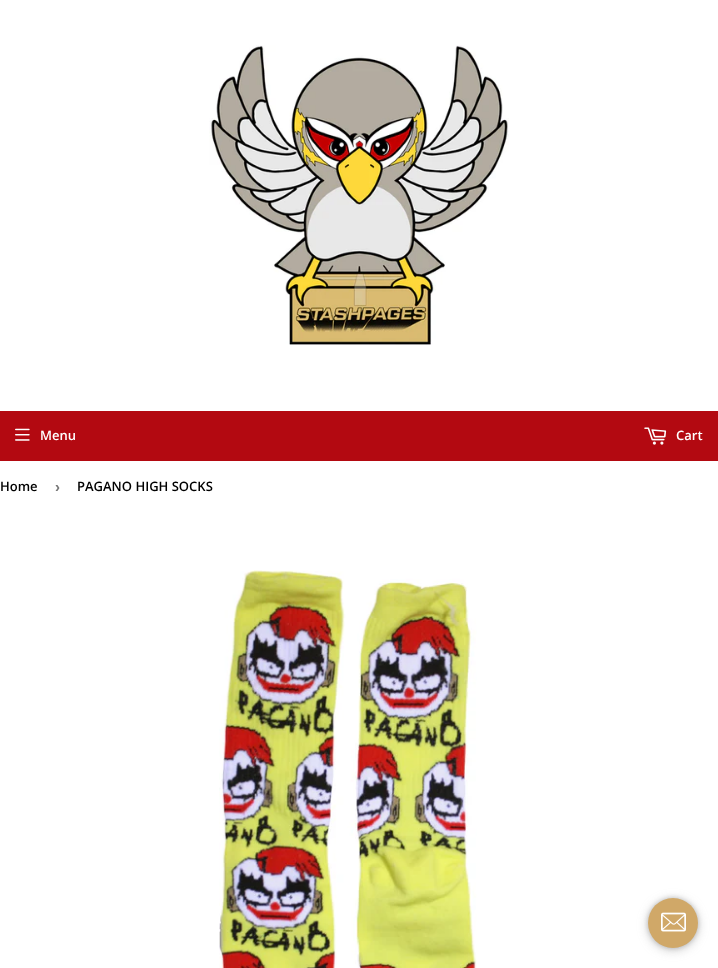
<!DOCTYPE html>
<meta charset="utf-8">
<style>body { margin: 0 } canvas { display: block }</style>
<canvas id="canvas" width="718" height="968"></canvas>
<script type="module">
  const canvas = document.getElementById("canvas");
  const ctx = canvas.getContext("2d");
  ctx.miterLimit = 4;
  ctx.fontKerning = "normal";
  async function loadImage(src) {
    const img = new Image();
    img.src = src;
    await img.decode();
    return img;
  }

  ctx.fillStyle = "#ffffff";
  ctx.fillRect(0, 0, 718, 968);
  ctx.drawImage(await loadImage("img1.png"), 209, 45, 300, 300);
  ctx.fillStyle = "#b30911";
  ctx.fillRect(0, 411, 718, 50);
  ctx.drawImage(await loadImage("img2.png"), 15, 428, 15, 13);
  ctx.font = "600 13px Open Sans";
  ctx.fillStyle = "#ffffff";
  ctx.fillText("Menu", 40, 440);
  ctx.drawImage(await loadImage("img3.png"), 644, 427, 23, 18);
  ctx.fillText("Cart", 676, 440);
  ctx.fillStyle = "#000000";
  ctx.fillText("Home", 0, 491);
  ctx.font = "bold 15px Liberation Sans";
  ctx.fillStyle = "#767676";
  ctx.fillText("›", 55, 492);
  ctx.font = "600 13px Open Sans";
  ctx.fillStyle = "#000000";
  ctx.fillText("PAGANO HIGH SOCKS", 77, 491);
  ctx.drawImage(await loadImage("img4.png"), 219, 570, 258, 398);
  ctx.fillStyle = "rgba(128, 128, 128, 0.4)";
  ctx.filter = "blur(5.5px)";
  ctx.beginPath();
  ctx.roundRect(648, 900, 50, 50, 25);
  ctx.fill();
  ctx.filter = "none";
  ctx.fillStyle = "rgba(255, 255, 255, 0.15)";
  ctx.beginPath();
  ctx.moveTo(674, 899);
  ctx.bezierCurveTo(679, 899, 683, 900, 687, 902);
  ctx.bezierCurveTo(663, 887, 636, 917, 653, 939);
  ctx.bezierCurveTo(644, 924, 651, 899, 674, 899);
  ctx.closePath();
  ctx.fill();
  ctx.fillStyle = "rgba(0, 0, 0, 0.2)";
  ctx.filter = "blur(2.5px)";
  ctx.beginPath();
  ctx.roundRect(648, 898, 50, 50, 25);
  ctx.fill();
  ctx.filter = "none";
  ctx.fillStyle = "#d0a868";
  ctx.beginPath();
  ctx.arc(673, 923, 25, 0, Math.PI * 2);
  ctx.fill();
  ctx.drawImage(await loadImage("img5.png"), 661, 912, 25, 20);
</script>
